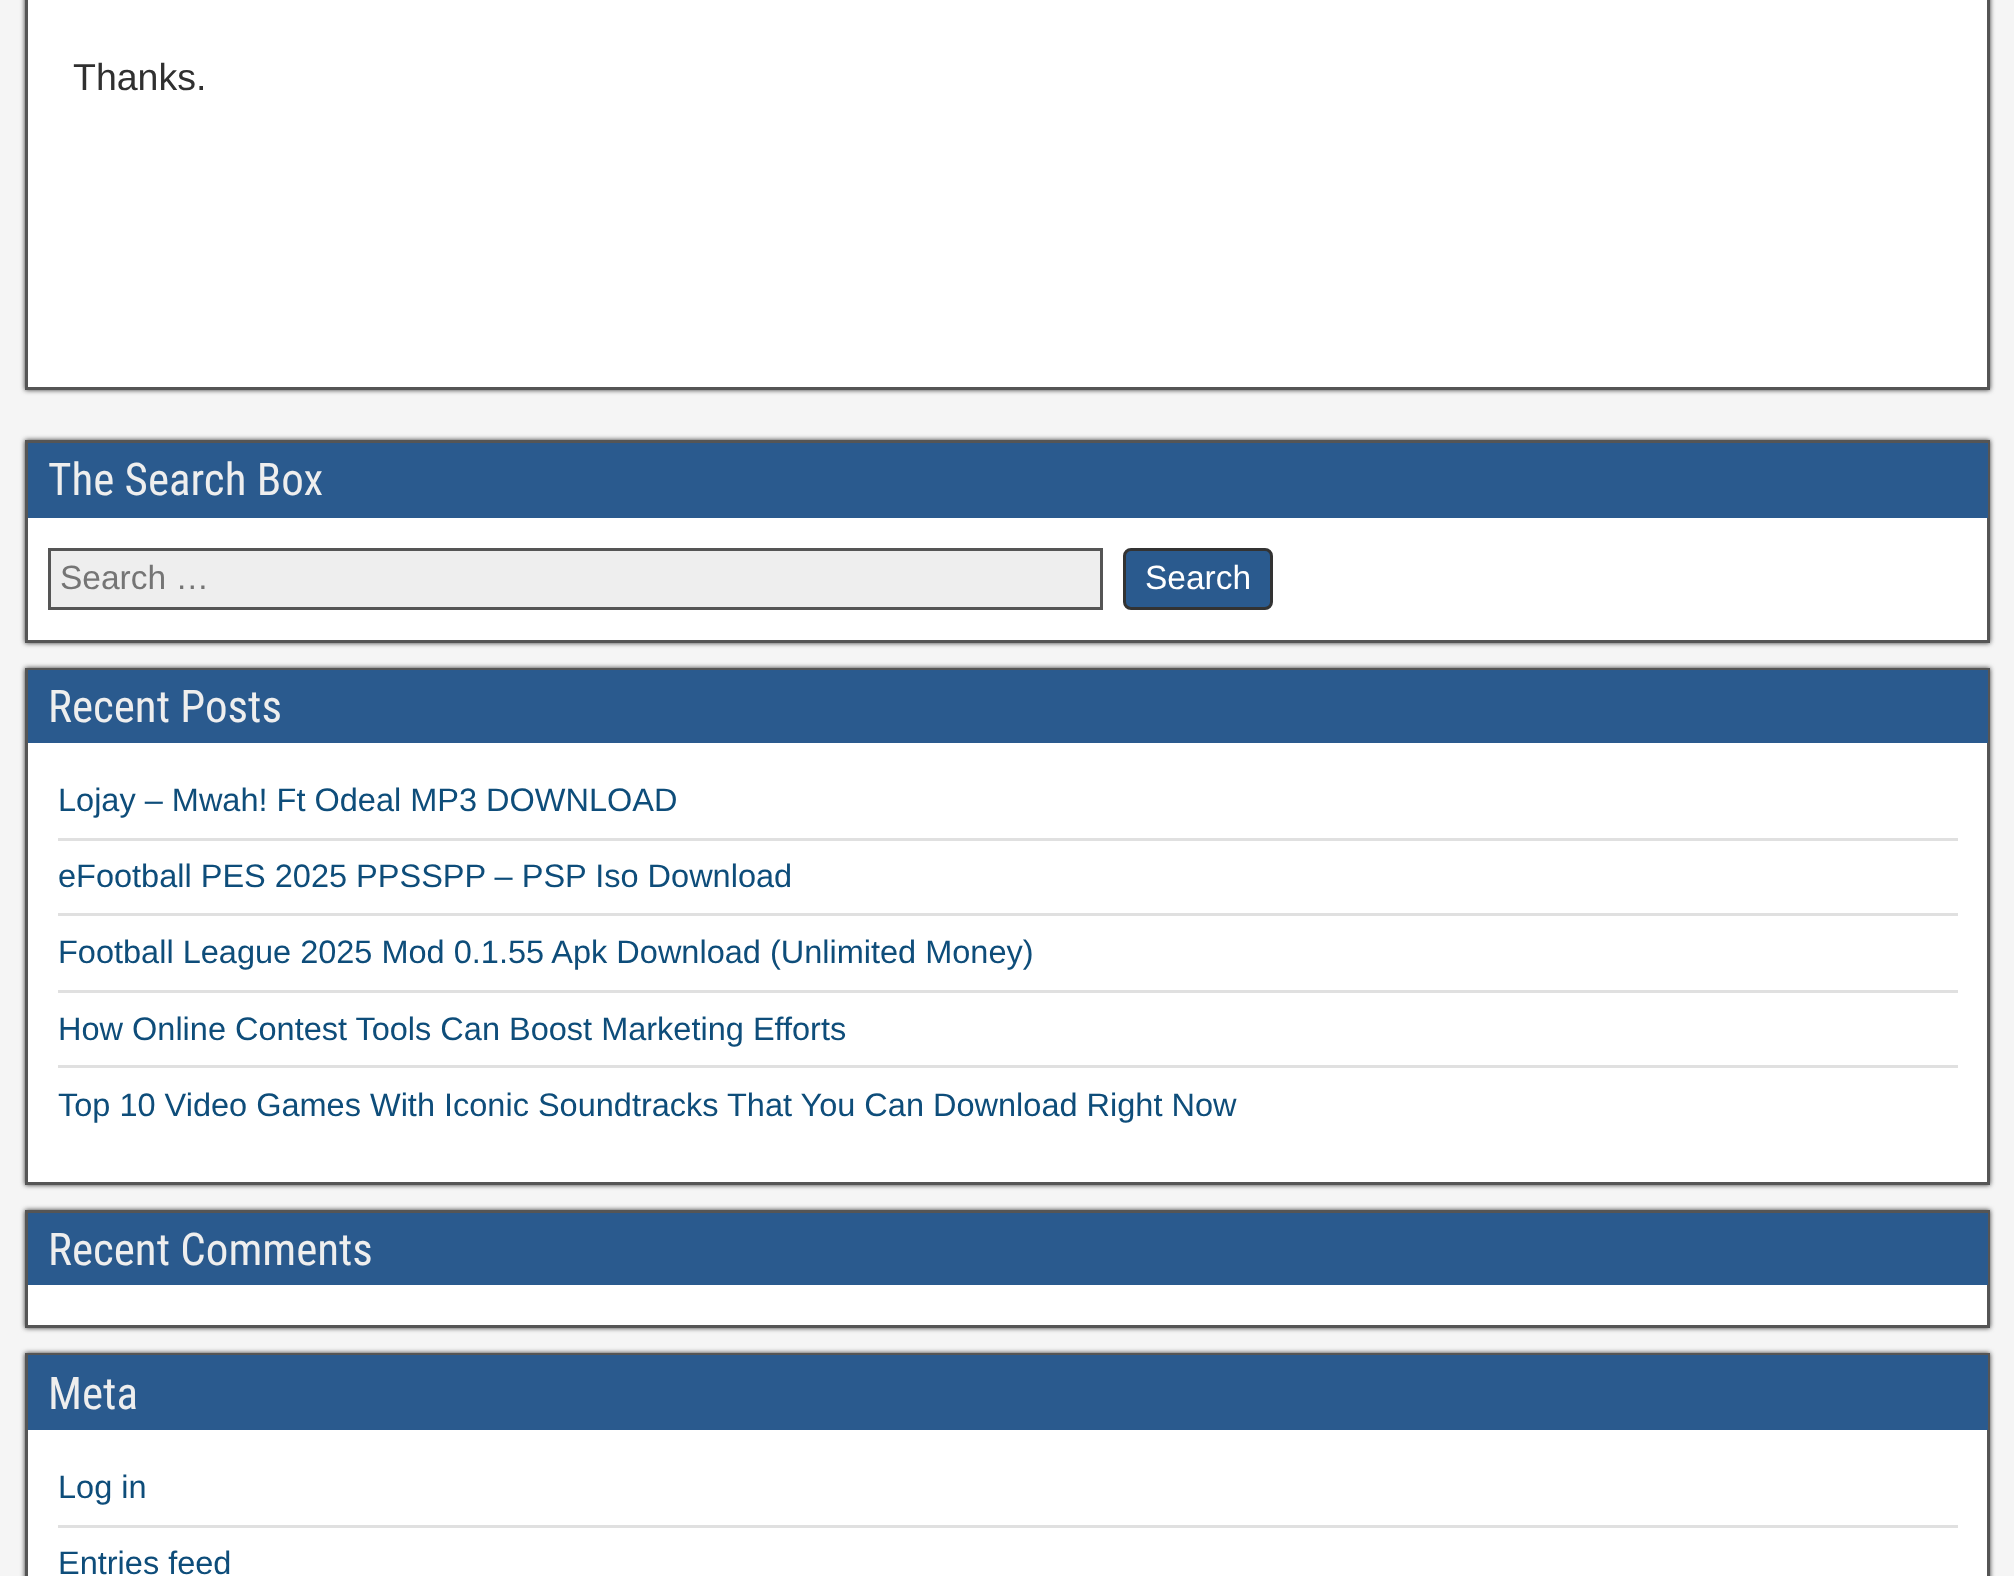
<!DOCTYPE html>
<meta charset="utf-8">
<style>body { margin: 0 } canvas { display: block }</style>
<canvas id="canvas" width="2014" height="1576"></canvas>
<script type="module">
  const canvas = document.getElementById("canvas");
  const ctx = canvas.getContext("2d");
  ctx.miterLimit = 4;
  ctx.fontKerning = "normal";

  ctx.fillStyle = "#f5f5f5";
  ctx.fillRect(0, 0, 2014, 1576);
  ctx.fillStyle = "#333333";
  ctx.filter = "blur(2.5px)";
  ctx.beginPath();
  ctx.rect(25, -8, 1965, 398);
  ctx.fill();
  ctx.filter = "none";
  ctx.fillStyle = "#ffffff";
  ctx.beginPath();
  ctx.rect(26.5, -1.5, 1962, 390);
  ctx.fill();
  ctx.strokeStyle = "#555555";
  ctx.lineWidth = 3;
  ctx.stroke();
  ctx.font = "37.5px Arimo";
  ctx.fillStyle = "#303030";
  ctx.fillText("Thanks.", 73, 90);
  ctx.fillStyle = "#333333";
  ctx.filter = "blur(2.5px)";
  ctx.beginPath();
  ctx.rect(25, 440, 1965, 203);
  ctx.fill();
  ctx.filter = "none";
  ctx.fillStyle = "#ffffff";
  ctx.fillRect(28, 518, 1959, 122);
  ctx.strokeRect(26.5, 441.5, 1962, 200);
  ctx.fillStyle = "#2a5a8e";
  ctx.fillRect(28, 443, 1960, 75);
  ctx.font = "45px Roboto Condensed";
  ctx.fillStyle = "#eeeeee";
  ctx.fillText("The Search Box", 48, 495);
  ctx.beginPath();
  ctx.rect(49.5, 549.5, 1052, 59);
  ctx.fill();
  ctx.stroke();
  ctx.font = "33.5px Liberation Sans";
  ctx.fillStyle = "#757575";
  ctx.fillText("Search …", 60, 589);
  ctx.fillStyle = "#2a5a8e";
  ctx.beginPath();
  ctx.roundRect(1124.5, 549.5, 147, 59, 6.5);
  ctx.fill();
  ctx.strokeStyle = "#333333";
  ctx.stroke();
  ctx.fillStyle = "#ffffff";
  ctx.fillText("Search", 1145, 589);
  ctx.fillStyle = "#333333";
  ctx.filter = "blur(2.5px)";
  ctx.beginPath();
  ctx.rect(25, 668, 1965, 517);
  ctx.fill();
  ctx.filter = "none";
  ctx.fillStyle = "#ffffff";
  ctx.fillRect(28, 743, 1959, 439);
  ctx.strokeStyle = "#555555";
  ctx.strokeRect(26.5, 669.5, 1962, 514);
  ctx.fillStyle = "#2a5a8e";
  ctx.fillRect(28, 670, 1960, 73);
  ctx.font = "45px Roboto Condensed";
  ctx.fillStyle = "#eeeeee";
  ctx.fillText("Recent Posts", 48, 722);
  ctx.fillStyle = "#e0e0e0";
  ctx.fillRect(58, 838, 1900, 3);
  ctx.font = "32.5px Liberation Sans";
  ctx.fillStyle = "#0e4d7a";
  ctx.fillText("Lojay – Mwah! Ft Odeal MP3 DOWNLOAD", 58, 811);
  ctx.fillStyle = "#e0e0e0";
  ctx.fillRect(58, 913, 1900, 3);
  ctx.fillStyle = "#0e4d7a";
  ctx.fillText("eFootball PES 2025 PPSSPP – PSP Iso Download", 58, 887);
  ctx.fillStyle = "#e0e0e0";
  ctx.fillRect(58, 990, 1900, 3);
  ctx.fillStyle = "#0e4d7a";
  ctx.fillText("Football League 2025 Mod 0.1.55 Apk Download (Unlimited Money)", 58, 963);
  ctx.fillStyle = "#e0e0e0";
  ctx.fillRect(58, 1065, 1900, 3);
  ctx.fillStyle = "#0e4d7a";
  ctx.fillText("How Online Contest Tools Can Boost Marketing Efforts", 58, 1040);
  ctx.fillText("Top 10 Video Games With Iconic Soundtracks That You Can Download Right Now", 58, 1116);
  ctx.fillStyle = "#333333";
  ctx.filter = "blur(2.5px)";
  ctx.beginPath();
  ctx.rect(25, 1210, 1965, 118);
  ctx.fill();
  ctx.filter = "none";
  ctx.fillStyle = "#ffffff";
  ctx.fillRect(28, 1285, 1959, 40);
  ctx.strokeRect(26.5, 1211.5, 1962, 115);
  ctx.fillStyle = "#2a5a8e";
  ctx.fillRect(28, 1213, 1960, 72);
  ctx.font = "45px Roboto Condensed";
  ctx.fillStyle = "#eeeeee";
  ctx.fillText("Recent Comments", 48, 1265);
  ctx.fillStyle = "#333333";
  ctx.filter = "blur(2.5px)";
  ctx.beginPath();
  ctx.rect(25, 1353, 1965, 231);
  ctx.fill();
  ctx.filter = "none";
  ctx.fillStyle = "#ffffff";
  ctx.fillRect(28, 1430, 1959, 146);
  ctx.strokeRect(26.5, 1354.5, 1962, 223);
  ctx.fillStyle = "#2a5a8e";
  ctx.fillRect(28, 1355, 1960, 75);
  ctx.fillStyle = "#eeeeee";
  ctx.fillText("Meta", 48, 1409);
  ctx.fillStyle = "#e0e0e0";
  ctx.fillRect(58, 1525, 1900, 3);
  ctx.font = "32.5px Liberation Sans";
  ctx.fillStyle = "#0e4d7a";
  ctx.fillText("Log in", 58, 1498);
  ctx.fillText("Entries feed", 58, 1574);
</script>
